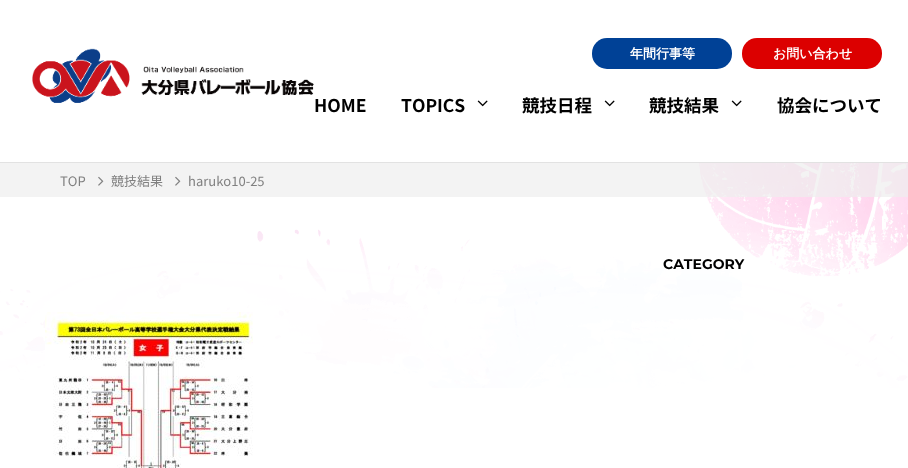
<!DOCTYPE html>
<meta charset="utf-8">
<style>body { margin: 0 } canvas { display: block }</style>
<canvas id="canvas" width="908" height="468"></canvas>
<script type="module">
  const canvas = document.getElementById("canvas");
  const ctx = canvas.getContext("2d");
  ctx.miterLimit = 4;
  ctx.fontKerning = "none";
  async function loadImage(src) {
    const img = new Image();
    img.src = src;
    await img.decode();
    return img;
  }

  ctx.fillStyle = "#ffffff";
  ctx.fillRect(0, 0, 908, 468);
  ctx.drawImage(await loadImage("img1.png"), 32, 48, 282, 55);
  ctx.fillStyle = "#004196";
  ctx.beginPath();
  ctx.roundRect(592, 38, 140, 31, 15);
  ctx.fill();
  ctx.font = "bold 13px WenQuanYi Zen Hei";
  ctx.fillStyle = "#ffffff";
  ctx.fillText("年間行事等", 630, 58);
  ctx.fillStyle = "#dc0000";
  ctx.beginPath();
  ctx.roundRect(742, 38, 140, 31, 15);
  ctx.fill();
  ctx.fillStyle = "#ffffff";
  ctx.fillText("お問い合わせ", 773, 58);
  ctx.font = "bold 17.5px Noto Sans JP";
  ctx.fillStyle = "#000000";
  ctx.fillText("HOME", 314, 112);
  ctx.fillText("TOPICS", 401, 112);
  ctx.drawImage(await loadImage("img2.png"), 477, 100, 11, 7);
  ctx.fillText("競技日程", 522, 112);
  ctx.drawImage(await loadImage("img2.png"), 604, 100, 11, 7);
  ctx.fillText("競技結果", 649, 112);
  ctx.drawImage(await loadImage("img2.png"), 731, 100, 11, 7);
  ctx.fillText("協会について", 777, 112);
  ctx.drawImage(await loadImage("img3.png"), 0, 163, 908, 225);
  ctx.fillStyle = "rgba(238, 238, 238, 0.7)";
  ctx.fillRect(0, 163, 908, 34);
  ctx.fillStyle = "#e2e2e2";
  ctx.fillRect(0, 162, 908, 1);
  ctx.font = "13px Noto Sans JP";
  ctx.fillStyle = "#808080";
  ctx.fillText("TOP", 60, 186);
  ctx.drawImage(await loadImage("img4.png"), 98, 176, 6, 10);
  ctx.fillText("競技結果", 111, 186);
  ctx.drawImage(await loadImage("img4.png"), 175, 176, 6, 10);
  ctx.fillText("haruko10-25", 188, 186);
  ctx.font = "bold 14px Montserrat";
  ctx.fillStyle = "#000000";
  ctx.fillText("CATEGORY", 663, 269);
  ctx.drawImage(await loadImage("img5.png"), 45, 312, 208, 156);
</script>
